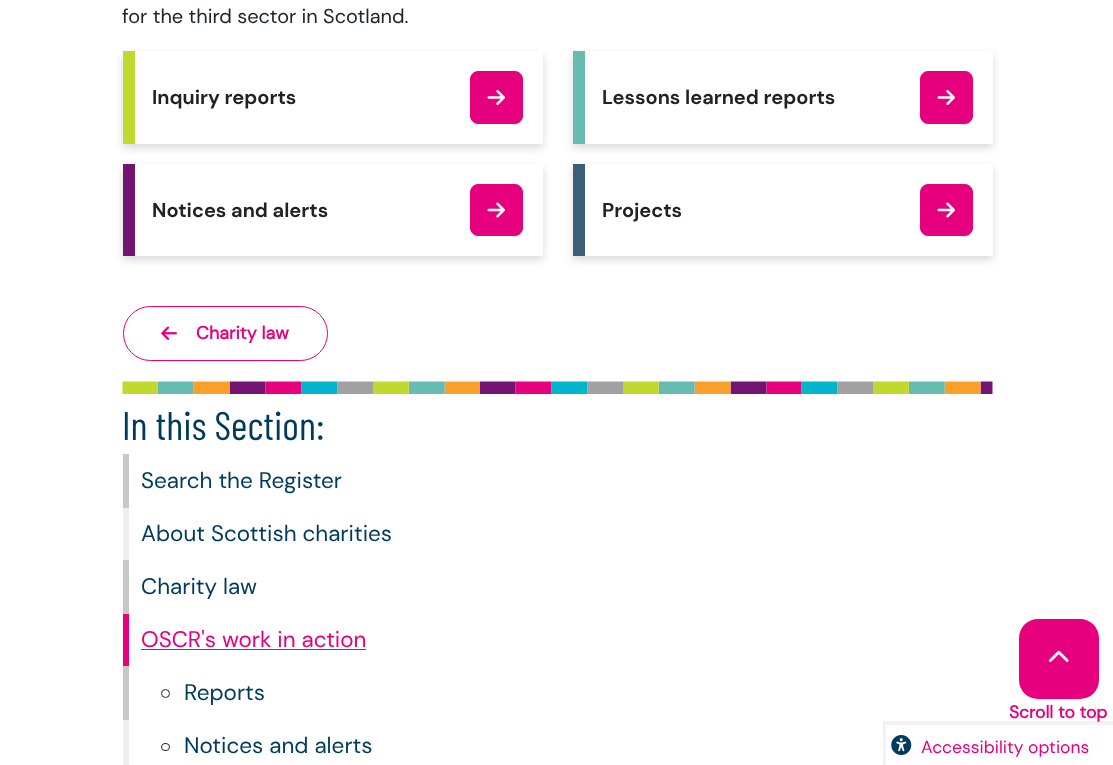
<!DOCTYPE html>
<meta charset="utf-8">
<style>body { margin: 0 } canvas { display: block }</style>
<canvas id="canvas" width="1113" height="765"></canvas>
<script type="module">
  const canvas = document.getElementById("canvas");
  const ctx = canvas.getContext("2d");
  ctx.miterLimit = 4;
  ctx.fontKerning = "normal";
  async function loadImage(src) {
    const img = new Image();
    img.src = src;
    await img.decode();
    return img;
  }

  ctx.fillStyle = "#ffffff";
  ctx.fillRect(0, 0, 1113, 765);
  ctx.font = "20px DM Sans";
  ctx.fillStyle = "#212529";
  ctx.fillText("for the third sector in Scotland.", 122, 23);
  ctx.fillStyle = "rgba(0, 0, 0, 0.15)";
  ctx.filter = "blur(4px)";
  ctx.beginPath();
  ctx.rect(123, 55, 420, 93);
  ctx.fill();
  ctx.filter = "none";
  ctx.fillStyle = "#c1d82f";
  ctx.fillRect(123, 51, 12, 93);
  ctx.fillStyle = "#ffffff";
  ctx.fillRect(135, 51, 408, 93);
  ctx.font = "bold 20px 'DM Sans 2'";
  ctx.fillStyle = "#212121";
  ctx.fillText("Inquiry reports", 152, 104);
  ctx.fillStyle = "#e6007d";
  ctx.beginPath();
  ctx.roundRect(470.5, 71.5, 52, 52, 7.5);
  ctx.fill();
  ctx.strokeStyle = "#e6007d";
  ctx.stroke();
  ctx.drawImage(await loadImage("img1.png"), 487, 90, 18, 15);
  ctx.fillStyle = "rgba(0, 0, 0, 0.15)";
  ctx.filter = "blur(4px)";
  ctx.beginPath();
  ctx.rect(573, 55, 420, 93);
  ctx.fill();
  ctx.filter = "none";
  ctx.fillStyle = "#66bcae";
  ctx.fillRect(573, 51, 12, 93);
  ctx.fillStyle = "#ffffff";
  ctx.fillRect(585, 51, 408, 93);
  ctx.fillStyle = "#212121";
  ctx.fillText("Lessons learned reports", 602, 104);
  ctx.fillStyle = "#e6007d";
  ctx.beginPath();
  ctx.roundRect(920.5, 71.5, 52, 52, 7.5);
  ctx.fill();
  ctx.stroke();
  ctx.drawImage(await loadImage("img1.png"), 937, 90, 18, 15);
  ctx.fillStyle = "rgba(0, 0, 0, 0.15)";
  ctx.filter = "blur(4px)";
  ctx.beginPath();
  ctx.rect(123, 168, 420, 92);
  ctx.fill();
  ctx.filter = "none";
  ctx.fillStyle = "#731472";
  ctx.fillRect(123, 164, 12, 92);
  ctx.fillStyle = "#ffffff";
  ctx.fillRect(135, 164, 408, 92);
  ctx.fillStyle = "#212121";
  ctx.fillText("Notices and alerts", 152, 217);
  ctx.fillStyle = "#e6007d";
  ctx.beginPath();
  ctx.roundRect(470.5, 184.5, 52, 51, 7.5);
  ctx.fill();
  ctx.stroke();
  ctx.drawImage(await loadImage("img2.png"), 487, 202, 18, 16);
  ctx.fillStyle = "rgba(0, 0, 0, 0.15)";
  ctx.filter = "blur(4px)";
  ctx.beginPath();
  ctx.rect(573, 168, 420, 92);
  ctx.fill();
  ctx.filter = "none";
  ctx.fillStyle = "#3a5f77";
  ctx.fillRect(573, 164, 12, 92);
  ctx.fillStyle = "#ffffff";
  ctx.fillRect(585, 164, 408, 92);
  ctx.fillStyle = "#212121";
  ctx.fillText("Projects", 602, 217);
  ctx.fillStyle = "#e6007d";
  ctx.beginPath();
  ctx.roundRect(920.5, 184.5, 52, 51, 7.5);
  ctx.fill();
  ctx.stroke();
  ctx.drawImage(await loadImage("img2.png"), 937, 202, 18, 16);
  ctx.beginPath();
  ctx.roundRect(123.5, 306.5, 204, 54, 27);
  ctx.stroke();
  ctx.drawImage(await loadImage("img3.png"), 161, 326, 16, 14);
  ctx.font = "bold 18px DM Sans";
  ctx.fillText("Charity law", 196, 339);
  ctx.drawImage(await loadImage("img4.png"), 122, 381, 871, 13);
  ctx.font = "40px Barlow Condensed";
  ctx.fillStyle = "#003b5c";
  ctx.fillText("In this Section:", 122, 440);
  ctx.fillStyle = "#c8c8c8";
  ctx.fillRect(123, 454, 6, 54);
  ctx.font = "22.5px DM Sans";
  ctx.fillStyle = "#003b5c";
  ctx.fillText("Search the Register", 141, 488);
  ctx.fillStyle = "#eeeeee";
  ctx.fillRect(123, 508, 6, 52);
  ctx.fillStyle = "#003b5c";
  ctx.fillText("About Scottish charities", 141, 541);
  ctx.fillStyle = "#c8c8c8";
  ctx.fillRect(123, 560, 6, 54);
  ctx.fillStyle = "#003b5c";
  ctx.fillText("Charity law", 141, 594);
  ctx.fillStyle = "#e6007d";
  ctx.fillRect(123, 614, 6, 52);
  ctx.fillText("OSCR's work in action", 141, 647);
  ctx.fillRect(141, 649, 225, 1);
  ctx.fillStyle = "#c8c8c8";
  ctx.fillRect(123, 666, 6, 54);
  ctx.beginPath();
  ctx.arc(165.5, 693.5, 4, 0, Math.PI * 2);
  ctx.strokeStyle = "#212529";
  ctx.stroke();
  ctx.fillStyle = "#003b5c";
  ctx.fillText("Reports", 184, 700);
  ctx.fillStyle = "#eeeeee";
  ctx.fillRect(123, 720, 6, 45);
  ctx.beginPath();
  ctx.roundRect(161.5, 743.5, 8, 7, 3.5);
  ctx.stroke();
  ctx.fillStyle = "#003b5c";
  ctx.fillText("Notices and alerts", 184, 753);
  ctx.font = "bold 17.5px DM Sans";
  ctx.fillStyle = "#e6007d";
  ctx.fillText("Scroll to top", 1009, 718);
  ctx.strokeStyle = "rgba(0, 0, 0, 0.05)";
  ctx.lineWidth = 4;
  ctx.strokeRect(885, 723, 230, 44);
  ctx.fillStyle = "#ffffff";
  ctx.fillRect(886, 725, 1, 40);
  ctx.drawImage(await loadImage("img5.png"), 891, 735, 21, 20);
  ctx.font = "17.5px DM Sans";
  ctx.fillStyle = "#e6007d";
  ctx.fillText("Accessibility options", 921, 753);
  ctx.beginPath();
  ctx.roundRect(1019, 619, 80, 80, 19);
  ctx.fill();
  ctx.drawImage(await loadImage("img6.png"), 1048, 650, 21, 12);
</script>
